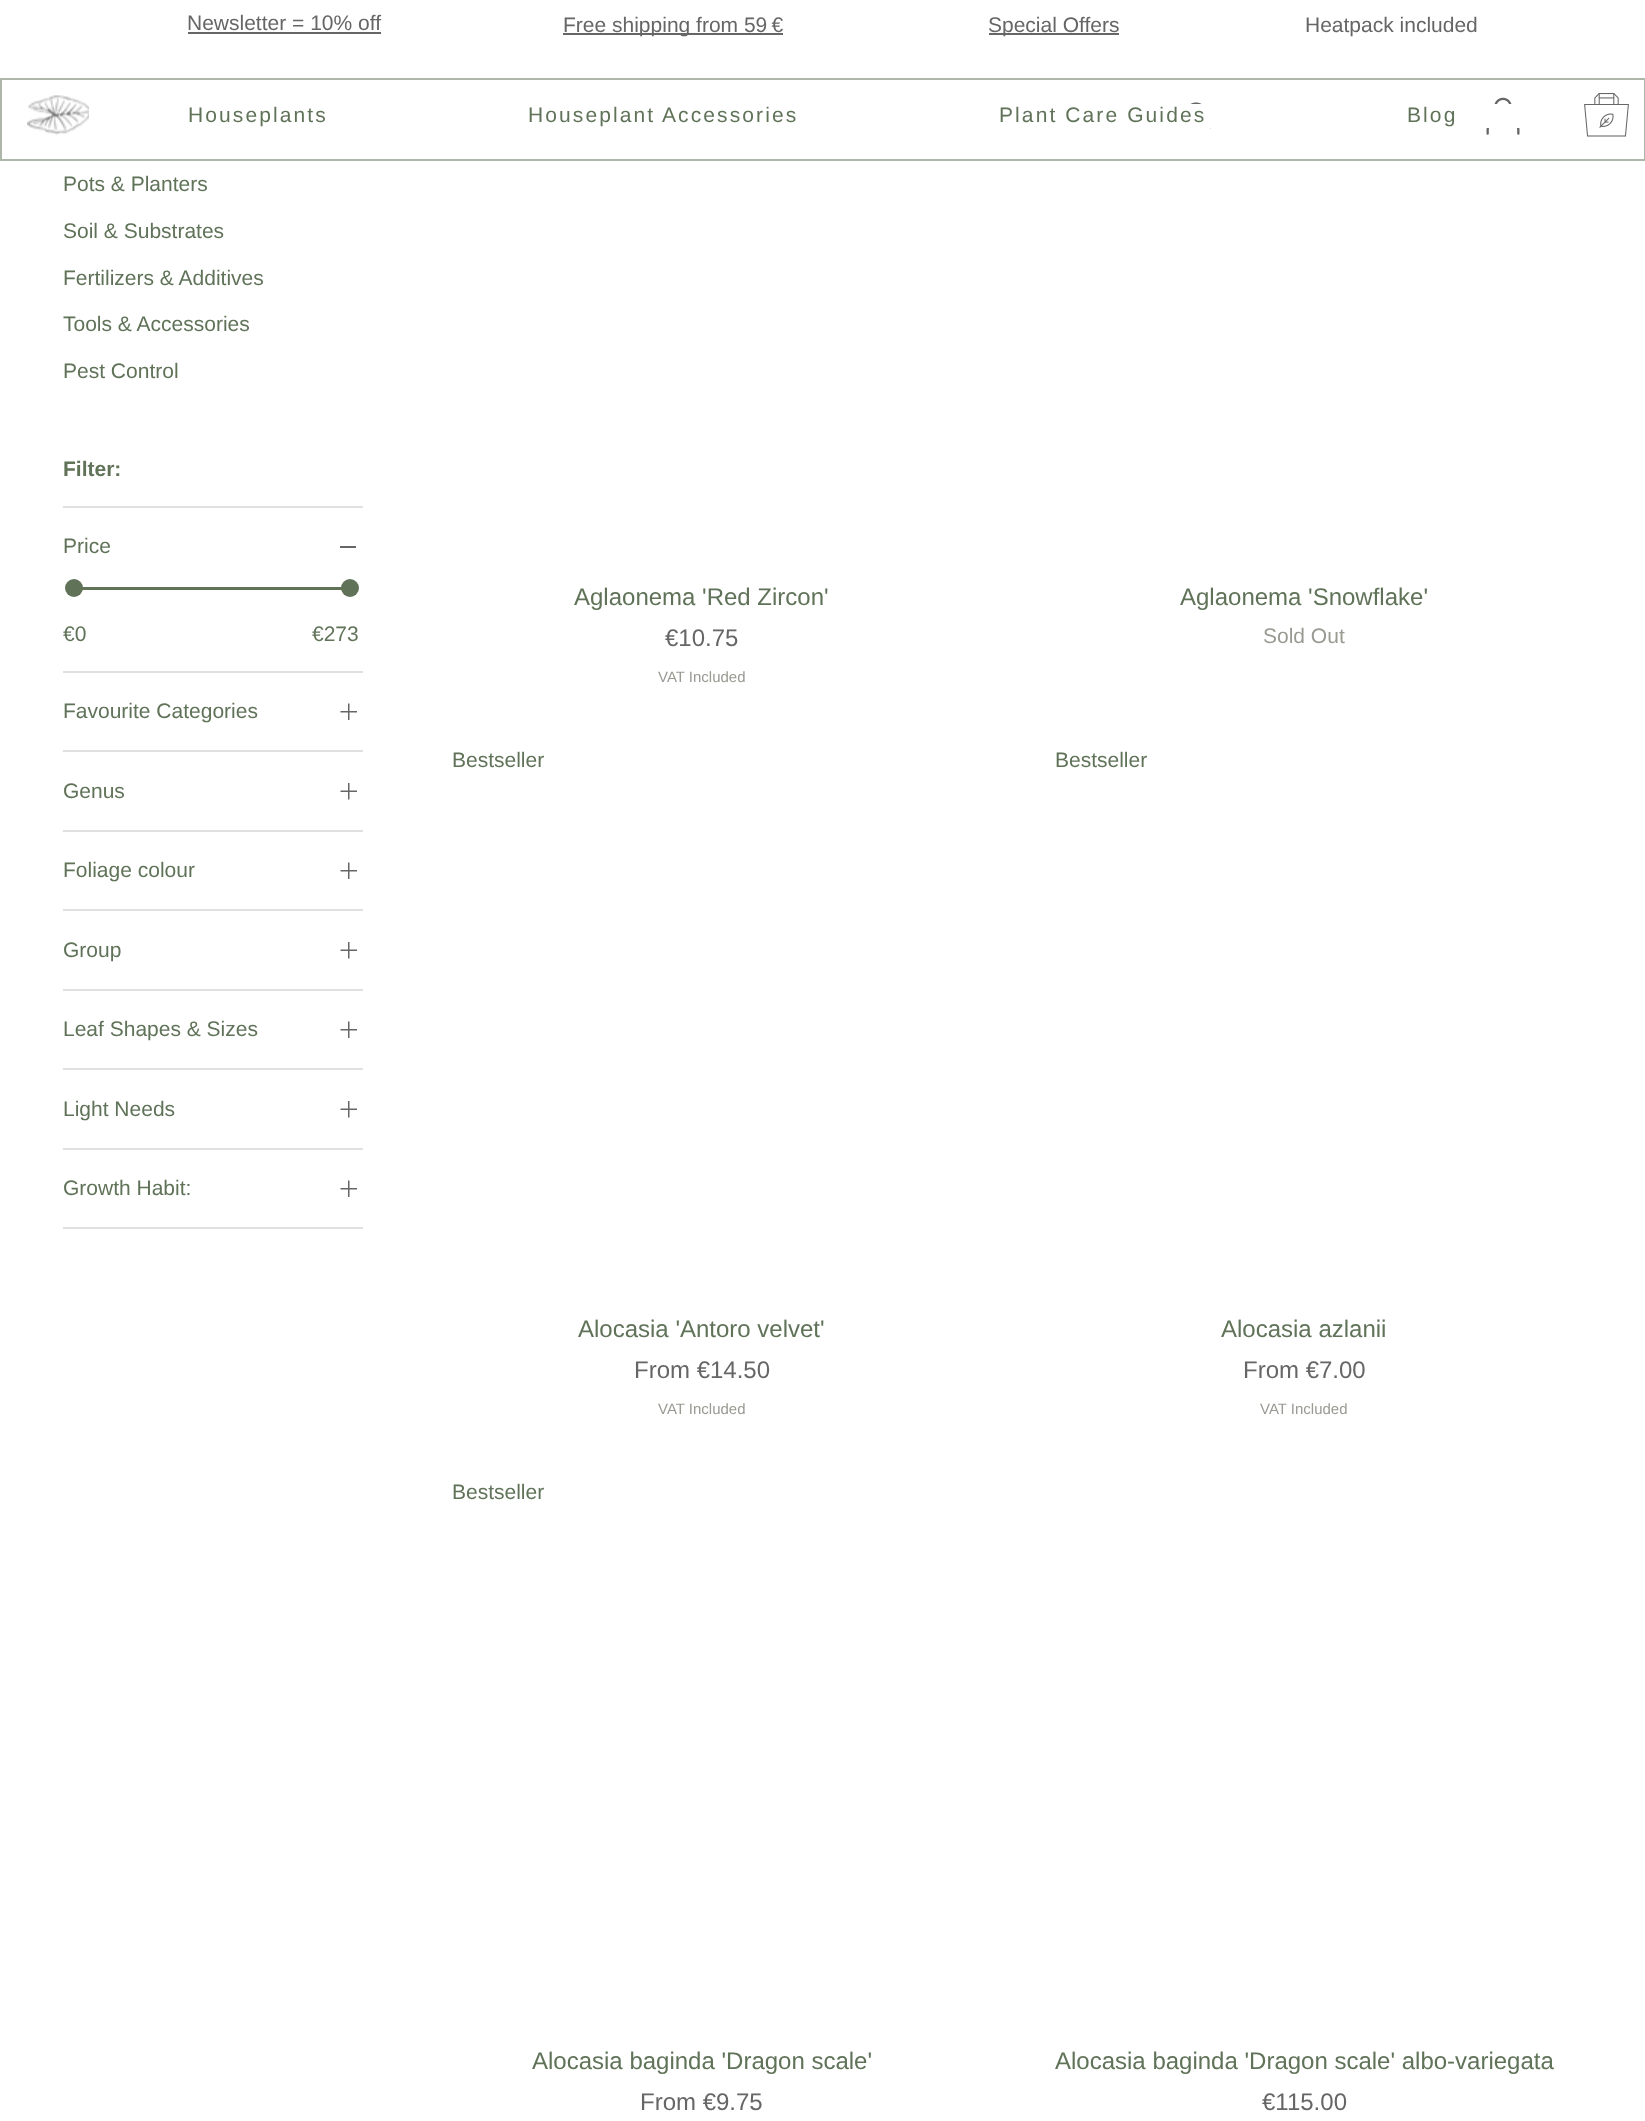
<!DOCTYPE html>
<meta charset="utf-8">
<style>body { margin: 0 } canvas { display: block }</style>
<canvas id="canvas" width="1645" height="2121"></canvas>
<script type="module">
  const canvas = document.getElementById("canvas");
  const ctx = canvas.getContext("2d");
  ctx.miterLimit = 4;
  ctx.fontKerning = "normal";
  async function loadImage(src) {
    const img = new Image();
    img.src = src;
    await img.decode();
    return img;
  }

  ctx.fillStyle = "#ffffff";
  ctx.fillRect(0, 0, 1645, 2121);
  ctx.font = "21px Liberation Sans";
  ctx.fillStyle = "#666666";
  ctx.fillText("Newsletter = 10% off", 187, 30);
  ctx.fillRect(188, 32, 193, 2);
  ctx.fillRect(563, 33, 220, 2);
  ctx.fillText("Free shipping from 59 €", 563, 32);
  ctx.fillRect(989, 33, 130, 2);
  ctx.fillText("Special Offers", 988, 32);
  ctx.fillText("Heatpack included", 1305, 32);
  ctx.strokeStyle = "#acb6a9";
  ctx.lineWidth = 2;
  ctx.strokeRect(1, 79, 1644, 81);
  ctx.drawImage(await loadImage("img1.png"), 27, 95, 62, 40);
  ctx.drawImage(await loadImage("img2.png"), 1190, 102, 21, 27);
  ctx.drawImage(await loadImage("img3.png"), 1486, 97, 34, 38);
  ctx.drawImage(await loadImage("img4.png"), 1584, 93, 45, 44);
  ctx.fillStyle = "#ffffff";
  ctx.fillRect(1190, 104, 330, 24);
  ctx.letterSpacing = "2.1px";
  ctx.fillStyle = "#607359";
  ctx.fillText("Houseplants", 188, 122);
  ctx.fillText("Houseplant Accessories", 528, 122);
  ctx.fillText("Plant Care Guides", 999, 122);
  ctx.fillText("Blog", 1407, 122);
  ctx.letterSpacing = "0px";
  ctx.fillText("Pots & Planters", 63, 191);
  ctx.fillText("Soil & Substrates", 63, 238);
  ctx.fillText("Fertilizers & Additives", 63, 285);
  ctx.fillText("Tools & Accessories", 63, 331);
  ctx.fillText("Pest Control", 63, 378);
  ctx.fillStyle = "#e0e0e0";
  ctx.fillRect(63, 506, 300, 2);
  ctx.font = "bold 21px Liberation Sans";
  ctx.fillStyle = "#607359";
  ctx.fillText("Filter:", 63, 476);
  ctx.fillStyle = "#e0e0e0";
  ctx.fillRect(63, 671, 300, 2);
  ctx.font = "21px Liberation Sans";
  ctx.fillStyle = "#607359";
  ctx.fillText("Price", 63, 553);
  ctx.fillStyle = "#666666";
  ctx.fillRect(340, 546, 16, 2);
  ctx.fillStyle = "#607359";
  ctx.fillRect(82, 587, 266, 3);
  ctx.beginPath();
  ctx.arc(74, 588, 9, 0, Math.PI * 2);
  ctx.fill();
  ctx.beginPath();
  ctx.arc(350, 588, 9, 0, Math.PI * 2);
  ctx.fill();
  ctx.fillText("€0", 63, 641);
  ctx.fillText("€273", 312, 641);
  ctx.fillStyle = "#e0e0e0";
  ctx.fillRect(63, 750, 300, 2);
  ctx.fillStyle = "#607359";
  ctx.fillText("Favourite Categories", 63, 718);
  ctx.drawImage(await loadImage("img5.png"), 340, 703, 17, 17);
  ctx.fillStyle = "#e0e0e0";
  ctx.fillRect(63, 830, 300, 2);
  ctx.fillStyle = "#607359";
  ctx.fillText("Genus", 63, 798);
  ctx.drawImage(await loadImage("img6.png"), 340, 783, 17, 17);
  ctx.fillStyle = "#e0e0e0";
  ctx.fillRect(63, 909, 300, 2);
  ctx.fillStyle = "#607359";
  ctx.fillText("Foliage colour", 63, 877);
  ctx.drawImage(await loadImage("img5.png"), 340, 862, 17, 17);
  ctx.fillStyle = "#e0e0e0";
  ctx.fillRect(63, 989, 300, 2);
  ctx.fillStyle = "#607359";
  ctx.fillText("Group", 63, 957);
  ctx.drawImage(await loadImage("img6.png"), 340, 942, 17, 17);
  ctx.fillStyle = "#e0e0e0";
  ctx.fillRect(63, 1068, 300, 2);
  ctx.fillStyle = "#607359";
  ctx.fillText("Leaf Shapes & Sizes", 63, 1036);
  ctx.drawImage(await loadImage("img5.png"), 340, 1021, 17, 17);
  ctx.fillStyle = "#e0e0e0";
  ctx.fillRect(63, 1148, 300, 2);
  ctx.fillStyle = "#607359";
  ctx.fillText("Light Needs", 63, 1116);
  ctx.drawImage(await loadImage("img6.png"), 340, 1101, 17, 17);
  ctx.fillStyle = "#e0e0e0";
  ctx.fillRect(63, 1227, 300, 2);
  ctx.fillStyle = "#607359";
  ctx.fillText("Growth Habit:", 63, 1195);
  ctx.drawImage(await loadImage("img5.png"), 340, 1180, 17, 17);
  ctx.font = "24px Liberation Sans";
  ctx.fillText("Aglaonema 'Red Zircon'", 574, 605);
  ctx.fillStyle = "#666666";
  ctx.fillText("€10.75", 665, 646);
  ctx.font = "15px Liberation Sans";
  ctx.fillStyle = "#9a9a93";
  ctx.fillText("VAT Included", 658, 682);
  ctx.font = "24px Liberation Sans";
  ctx.fillStyle = "#607359";
  ctx.fillText("Aglaonema 'Snowflake'", 1180, 605);
  ctx.font = "21px Liberation Sans";
  ctx.fillStyle = "#9a9a93";
  ctx.fillText("Sold Out", 1263, 643);
  ctx.fillStyle = "#607359";
  ctx.fillText("Bestseller", 452, 767);
  ctx.font = "24px Liberation Sans";
  ctx.fillText("Alocasia 'Antoro velvet'", 578, 1337);
  ctx.fillStyle = "#666666";
  ctx.fillText("From €14.50", 634, 1378);
  ctx.font = "15px Liberation Sans";
  ctx.fillStyle = "#9a9a93";
  ctx.fillText("VAT Included", 658, 1414);
  ctx.font = "21px Liberation Sans";
  ctx.fillStyle = "#607359";
  ctx.fillText("Bestseller", 1055, 767);
  ctx.font = "24px Liberation Sans";
  ctx.fillText("Alocasia azlanii", 1221, 1337);
  ctx.fillStyle = "#666666";
  ctx.fillText("From €7.00", 1243, 1378);
  ctx.font = "15px Liberation Sans";
  ctx.fillStyle = "#9a9a93";
  ctx.fillText("VAT Included", 1260, 1414);
  ctx.font = "21px Liberation Sans";
  ctx.fillStyle = "#607359";
  ctx.fillText("Bestseller", 452, 1499);
  ctx.font = "24px Liberation Sans";
  ctx.fillText("Alocasia baginda 'Dragon scale'", 532, 2069);
  ctx.fillStyle = "#666666";
  ctx.fillText("From €9.75", 640, 2110);
  ctx.fillStyle = "#607359";
  ctx.fillText("Alocasia baginda 'Dragon scale' albo-variegata", 1055, 2069);
  ctx.fillStyle = "#666666";
  ctx.fillText("€115.00", 1262, 2110);
</script>
